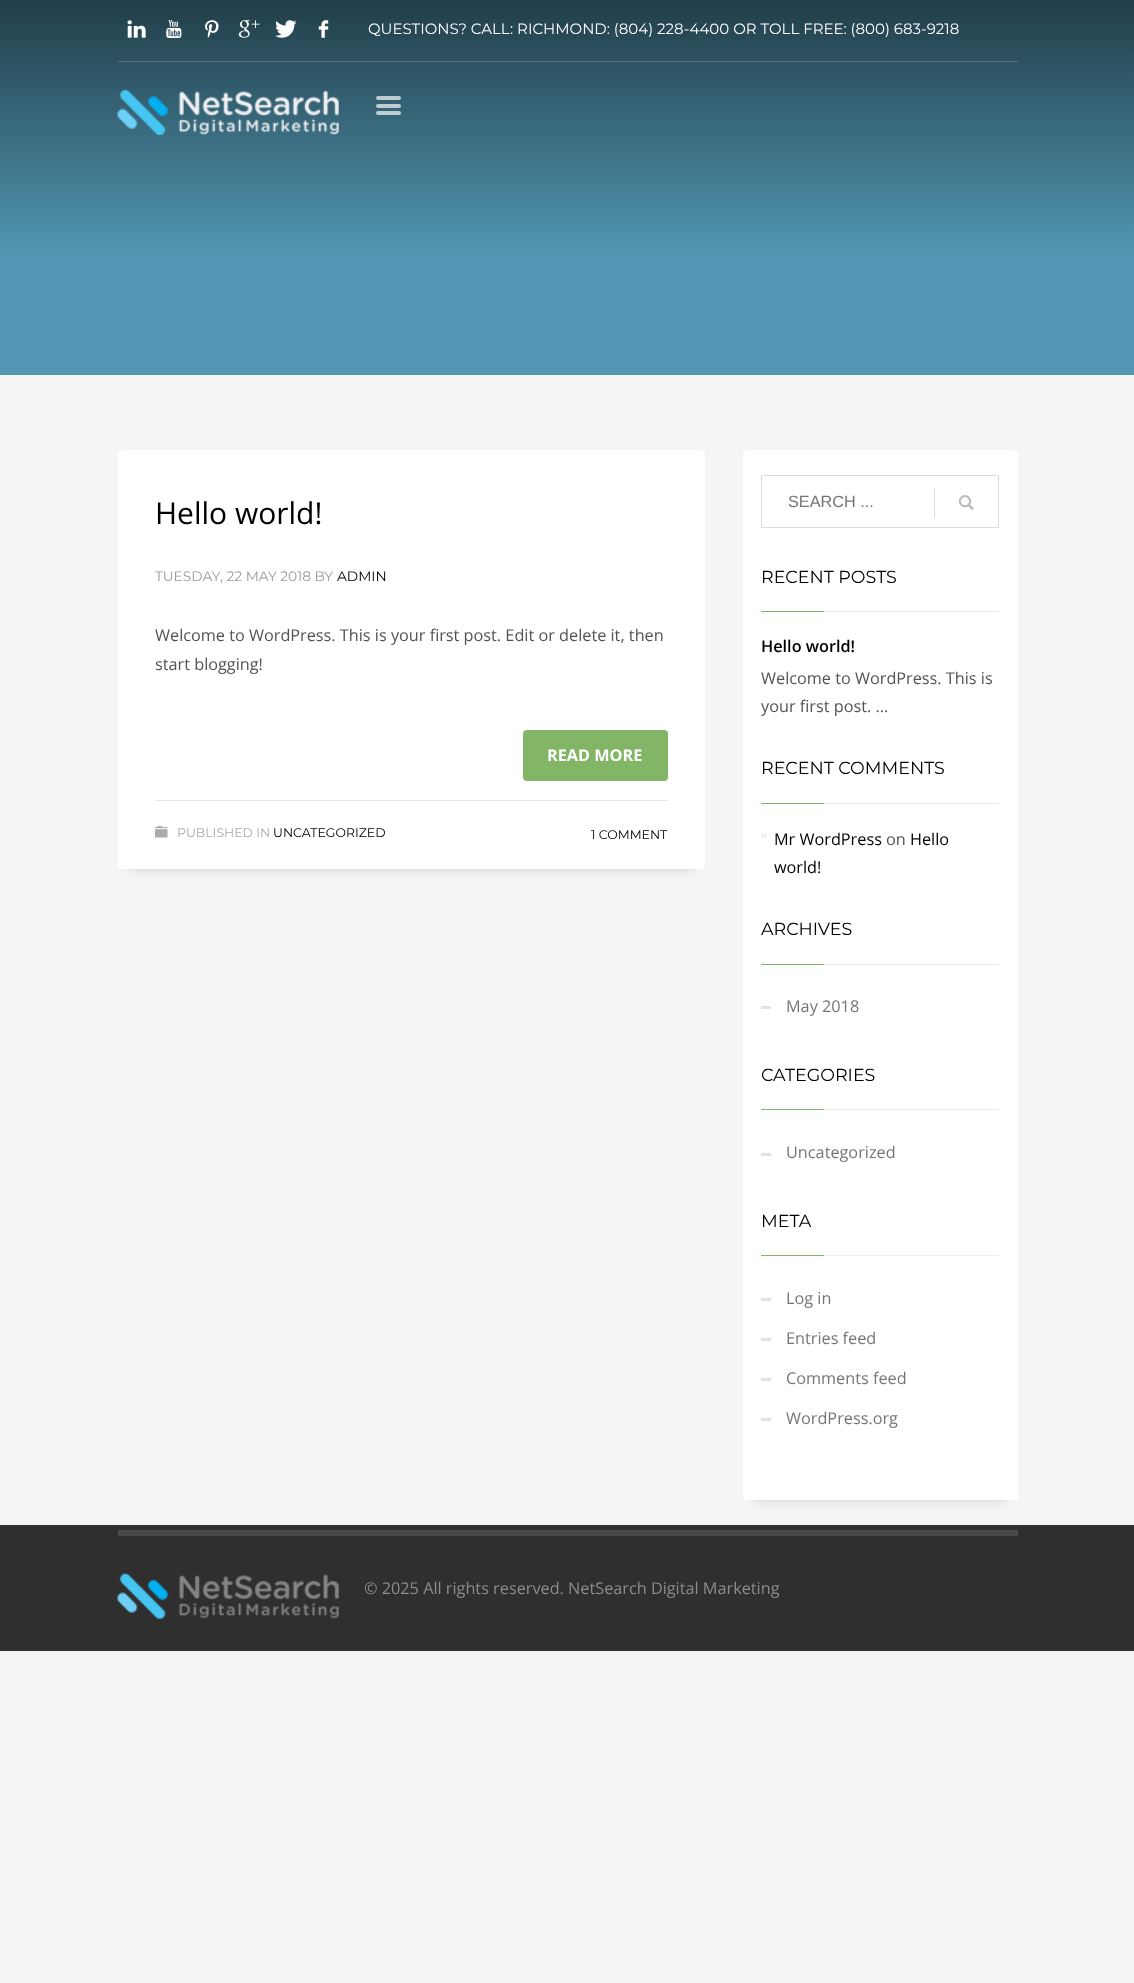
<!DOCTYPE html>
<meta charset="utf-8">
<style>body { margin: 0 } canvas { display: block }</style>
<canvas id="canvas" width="1134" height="1983"></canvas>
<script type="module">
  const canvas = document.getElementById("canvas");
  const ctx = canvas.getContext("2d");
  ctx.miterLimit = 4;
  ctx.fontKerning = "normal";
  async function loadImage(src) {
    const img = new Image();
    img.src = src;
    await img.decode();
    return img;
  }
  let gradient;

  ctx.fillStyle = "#f5f5f5";
  ctx.fillRect(0, 0, 1134, 1983);
  gradient = ctx.createLinearGradient(568, 0, 568, 259);
  gradient.addColorStop(0, "#213d48");
  gradient.addColorStop(1, "#5298b4");
  ctx.fillStyle = gradient;
  ctx.fillRect(0, 0, 1134, 259);
  ctx.drawImage(await loadImage("img1.png"), 127, 20, 19, 18);
  ctx.drawImage(await loadImage("img2.png"), 166, 19, 16, 19);
  ctx.drawImage(await loadImage("img3.png"), 205, 20, 14, 18);
  ctx.drawImage(await loadImage("img4.png"), 238, 20, 22, 18);
  ctx.drawImage(await loadImage("img5.png"), 275, 20, 22, 18);
  ctx.drawImage(await loadImage("img6.png"), 318, 20, 11, 18);
  ctx.font = "15px Montserrat";
  ctx.fillStyle = "#ffffff";
  ctx.fillText("QUESTIONS? CALL: RICHMOND: (804) 228-4400 OR TOLL FREE: (800) 683-9218", 368, 34);
  ctx.fillStyle = "#577581";
  ctx.fillRect(118, 61, 900, 1);
  ctx.drawImage(await loadImage("img7.png"), 117, 89, 222, 46);
  ctx.fillStyle = "#beccd2";
  ctx.beginPath();
  ctx.roundRect(376, 96, 25, 4, 2);
  ctx.fill();
  ctx.fillStyle = "#bfcdd2";
  ctx.beginPath();
  ctx.roundRect(376, 104, 25, 4, 2);
  ctx.fill();
  ctx.fillStyle = "#bfced4";
  ctx.beginPath();
  ctx.roundRect(376, 111, 25, 4, 2);
  ctx.fill();
  ctx.fillStyle = "#5298b4";
  ctx.fillRect(0, 259, 1134, 116);
  ctx.fillStyle = "rgba(0, 0, 0, 0.15)";
  ctx.filter = "blur(6px)";
  ctx.beginPath();
  ctx.rect(130, 475, 563, 394);
  ctx.fill();
  ctx.filter = "none";
  ctx.fillStyle = "#ffffff";
  ctx.beginPath();
  ctx.roundRect(118, 450, 587, 419, 4);
  ctx.fill();
  ctx.font = "30px Open Sans";
  ctx.fillStyle = "#000000";
  ctx.fillText("Hello world!", 155, 524);
  ctx.font = "13.75px Montserrat";
  ctx.fillStyle = "#9a9a9a";
  ctx.fillText("TUESDAY, 22 MAY 2018 BY", 155, 581);
  ctx.fillStyle = "#000000";
  ctx.fillText("ADMIN", 337, 581);
  ctx.font = "16.25px Open Sans";
  ctx.fillStyle = "#535353";
  ctx.fillText("Welcome to WordPress. This is your first post. Edit or delete it, then", 155, 641);
  ctx.fillText("start blogging!", 155, 670);
  ctx.fillStyle = "#e6e6e6";
  ctx.fillRect(155, 800, 513, 1);
  ctx.fillStyle = "#83b567";
  ctx.beginPath();
  ctx.roundRect(523, 730, 145, 51, 4);
  ctx.fill();
  ctx.font = "bold 16.25px Open Sans";
  ctx.fillStyle = "#ffffff";
  ctx.fillText("READ MORE", 547, 761);
  ctx.drawImage(await loadImage("img8.png"), 155, 826, 13, 12);
  ctx.font = "12.5px Montserrat";
  ctx.fillStyle = "#aaaaaa";
  ctx.fillText("PUBLISHED IN", 177, 837);
  ctx.fillStyle = "#000000";
  ctx.fillText("UNCATEGORIZED", 273, 837);
  ctx.fillText("1 COMMENT", 591, 839);
  ctx.fillStyle = "rgba(0, 0, 0, 0.15)";
  ctx.filter = "blur(6px)";
  ctx.beginPath();
  ctx.rect(755, 475, 250, 1025);
  ctx.fill();
  ctx.filter = "none";
  ctx.fillStyle = "#ffffff";
  ctx.beginPath();
  ctx.roundRect(743, 450, 275, 1050, 4);
  ctx.fill();
  ctx.strokeStyle = "#dddddd";
  ctx.strokeRect(761.5, 475.5, 237, 52);
  ctx.font = "16.25px Liberation Sans";
  ctx.fillStyle = "#757575";
  ctx.fillText("SEARCH ...", 788, 507);
  ctx.fillStyle = "#dddddd";
  ctx.fillRect(934, 488, 1, 30);
  ctx.drawImage(await loadImage("img9.png"), 958, 495, 16, 15);
  ctx.font = "17.5px Montserrat";
  ctx.fillStyle = "#000000";
  ctx.fillText("RECENT POSTS", 761, 583);
  ctx.fillStyle = "#83b567";
  ctx.fillRect(761, 611, 63, 1);
  ctx.fillStyle = "#ececec";
  ctx.fillRect(824, 611, 175, 1);
  ctx.font = "600 16.25px Open Sans";
  ctx.fillStyle = "#000000";
  ctx.fillText("Hello world!", 761, 652);
  ctx.font = "16.25px Open Sans";
  ctx.fillStyle = "#535353";
  ctx.fillText("Welcome to WordPress. This is", 761, 684);
  ctx.fillText("your first post. ...", 761, 712);
  ctx.font = "17.5px Montserrat";
  ctx.fillStyle = "#000000";
  ctx.fillText("RECENT COMMENTS", 761, 774);
  ctx.fillStyle = "#83b567";
  ctx.fillRect(761, 803, 63, 1);
  ctx.fillStyle = "#ececec";
  ctx.fillRect(824, 803, 175, 1);
  ctx.font = "16.25px Open Sans";
  ctx.fillStyle = "#dddddd";
  ctx.fillText("“", 761, 845);
  ctx.fillStyle = "#000000";
  ctx.fillText("Mr WordPress", 774, 845);
  ctx.fillText("Hello", 910, 845);
  ctx.fillStyle = "#535353";
  ctx.fillText("on", 886, 845);
  ctx.fillStyle = "#000000";
  ctx.fillText("world!", 774, 873);
  ctx.font = "17.5px Montserrat";
  ctx.fillText("ARCHIVES", 761, 935);
  ctx.fillStyle = "#83b567";
  ctx.fillRect(761, 964, 63, 1);
  ctx.fillStyle = "#ececec";
  ctx.fillRect(824, 964, 175, 1);
  ctx.fillStyle = "#e1e1e1";
  ctx.fillRect(761, 1006, 10, 3);
  ctx.font = "16.25px Open Sans";
  ctx.fillStyle = "#757575";
  ctx.fillText("May 2018", 786, 1012);
  ctx.font = "17.5px Montserrat";
  ctx.fillStyle = "#000000";
  ctx.fillText("CATEGORIES", 761, 1081);
  ctx.fillStyle = "#83b567";
  ctx.fillRect(761, 1109, 63, 1);
  ctx.fillStyle = "#ececec";
  ctx.fillRect(824, 1109, 175, 1);
  ctx.fillStyle = "#e1e1e1";
  ctx.fillRect(761, 1153, 10, 3);
  ctx.font = "16.25px Open Sans";
  ctx.fillStyle = "#757575";
  ctx.fillText("Uncategorized", 786, 1158);
  ctx.font = "17.5px Montserrat";
  ctx.fillStyle = "#000000";
  ctx.fillText("META", 761, 1227);
  ctx.fillStyle = "#83b567";
  ctx.fillRect(761, 1255, 63, 1);
  ctx.fillStyle = "#ececec";
  ctx.fillRect(824, 1255, 175, 1);
  ctx.fillStyle = "#e1e1e1";
  ctx.fillRect(761, 1298, 10, 3);
  ctx.font = "16.25px Open Sans";
  ctx.fillStyle = "#757575";
  ctx.fillText("Log in", 786, 1304);
  ctx.fillStyle = "#e1e1e1";
  ctx.fillRect(761, 1338, 10, 3);
  ctx.fillStyle = "#757575";
  ctx.fillText("Entries feed", 786, 1344);
  ctx.fillStyle = "#e1e1e1";
  ctx.fillRect(761, 1378, 10, 3);
  ctx.fillStyle = "#757575";
  ctx.fillText("Comments feed", 786, 1384);
  ctx.fillStyle = "#e1e1e1";
  ctx.fillRect(761, 1418, 10, 3);
  ctx.fillStyle = "#757575";
  ctx.fillText("WordPress.org", 786, 1424);
  ctx.fillStyle = "#2f2f2f";
  ctx.fillRect(0, 1525, 1134, 126);
  ctx.fillStyle = "#484848";
  ctx.fillRect(118, 1530, 900, 6);
  ctx.drawImage(await loadImage("img10.png"), 117, 1573, 222, 46);
  ctx.fillStyle = "#8b8c8d";
  ctx.fillText("© 2025 All rights reserved. NetSearch Digital Marketing", 364, 1594);
</script>
